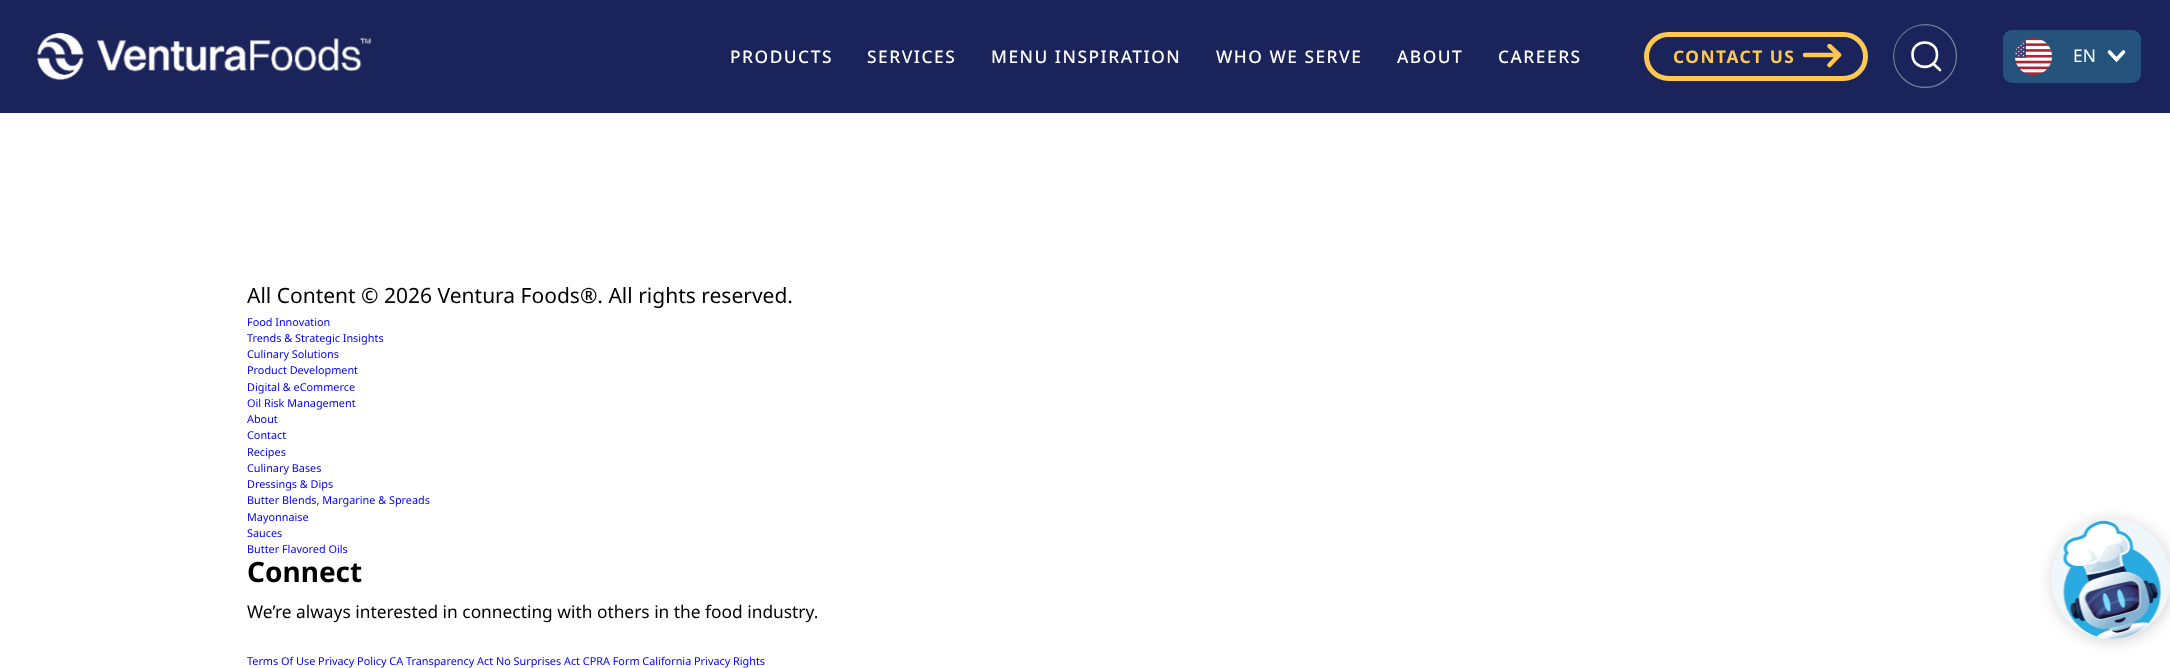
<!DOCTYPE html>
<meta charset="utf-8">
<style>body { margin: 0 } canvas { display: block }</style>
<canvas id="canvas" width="2170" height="668"></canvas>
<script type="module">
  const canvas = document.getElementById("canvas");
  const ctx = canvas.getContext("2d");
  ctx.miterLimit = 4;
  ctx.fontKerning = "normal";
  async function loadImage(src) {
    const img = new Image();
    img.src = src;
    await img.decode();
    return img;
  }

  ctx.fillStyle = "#ffffff";
  ctx.fillRect(0, 0, 2170, 668);
  ctx.fillStyle = "#1b245a";
  ctx.fillRect(0, 0, 2170, 113);
  ctx.drawImage(await loadImage("img1.png"), 37, 32, 335, 49);
  ctx.letterSpacing = "1.5px";
  ctx.font = "500 17.35px Noto Sans";
  ctx.fillStyle = "#ffffff";
  ctx.fillText("PRODUCTS", 730, 63);
  ctx.fillText("SERVICES", 867, 63);
  ctx.fillText("MENU INSPIRATION", 991, 63);
  ctx.fillText("WHO WE SERVE", 1216, 63);
  ctx.fillText("ABOUT", 1397, 63);
  ctx.fillText("CAREERS", 1498, 63);
  ctx.save();
  ctx.beginPath();
  ctx.rect(1803, 44, 41, 24);
  ctx.clip();
  ctx.beginPath();
  ctx.moveTo(1805, 55);
  ctx.lineTo(1839, 55);
  ctx.moveTo(1839, 55);
  ctx.lineTo(1829.5, 46);
  ctx.moveTo(1839, 55);
  ctx.lineTo(1829.5, 65);
  ctx.strokeStyle = "#ffc851";
  ctx.lineWidth = 4.5;
  ctx.lineCap = "round";
  ctx.stroke();
  ctx.restore();
  ctx.beginPath();
  ctx.roundRect(1646.5, 34.5, 219, 44, 22);
  ctx.strokeStyle = "#ffc851";
  ctx.lineWidth = 5;
  ctx.stroke();
  ctx.font = "bold 17.35px Noto Sans";
  ctx.fillStyle = "#ffc851";
  ctx.fillText("CONTACT US", 1673, 63);
  ctx.save();
  ctx.beginPath();
  ctx.roundRect(1893, 24, 65, 65, 32.5);
  ctx.clip();
  ctx.beginPath();
  ctx.arc(1925, 56, 31.5, 0, Math.PI * 2);
  ctx.strokeStyle = "#767c9c";
  ctx.lineWidth = 1.3;
  ctx.stroke();
  ctx.restore();
  ctx.beginPath();
  ctx.moveTo(1940, 70);
  ctx.lineTo(1933, 63.5);
  ctx.moveTo(1937, 54.5);
  ctx.bezierCurveTo(1937, 71, 1912.5, 71, 1912.5, 54.5);
  ctx.bezierCurveTo(1912.5, 38.5, 1937, 38.5, 1937, 54.5);
  ctx.closePath();
  ctx.strokeStyle = "#ffffff";
  ctx.lineWidth = 2.6;
  ctx.lineCap = "round";
  ctx.lineJoin = "round";
  ctx.stroke();
  ctx.fillStyle = "#25537c";
  ctx.beginPath();
  ctx.roundRect(2003, 30, 138, 53, 9);
  ctx.fill();
  ctx.drawImage(await loadImage("img2.png"), 2015, 38, 37, 37);
  ctx.letterSpacing = "0px";
  ctx.font = "17.35px Noto Sans";
  ctx.fillStyle = "#ffffff";
  ctx.fillText("EN", 2073, 62);
  ctx.beginPath();
  ctx.moveTo(2123.5, 52);
  ctx.lineTo(2116.5, 59.5);
  ctx.lineTo(2109.5, 52);
  ctx.lineWidth = 3.6;
  ctx.lineJoin = "miter";
  ctx.stroke();
  ctx.font = "21px Noto Sans";
  ctx.fillStyle = "#000000";
  ctx.fillText("All Content © 2026 Ventura Foods®. All rights reserved.", 247, 303);
  ctx.font = "10.85px Noto Sans";
  ctx.fillStyle = "#0000ee";
  ctx.fillText("Food Innovation", 247, 326);
  ctx.fillText("Trends & Strategic Insights", 247, 342);
  ctx.fillText("Culinary Solutions", 247, 358);
  ctx.fillText("Product Development", 247, 374);
  ctx.fillText("Digital & eCommerce", 247, 391);
  ctx.fillText("Oil Risk Management", 247, 407);
  ctx.fillText("About", 247, 423);
  ctx.fillText("Contact", 247, 439);
  ctx.fillText("Recipes", 247, 456);
  ctx.fillText("Culinary Bases", 247, 472);
  ctx.fillText("Dressings & Dips", 247, 488);
  ctx.fillText("Butter Blends, Margarine & Spreads", 247, 504);
  ctx.fillText("Mayonnaise", 247, 521);
  ctx.fillText("Sauces", 247, 537);
  ctx.fillText("Butter Flavored Oils", 247, 553);
  ctx.font = "bold 28px Noto Sans";
  ctx.fillStyle = "#000000";
  ctx.fillText("Connect", 247, 582);
  ctx.font = "17.35px Noto Sans";
  ctx.fillText("We’re always interested in connecting with others in the food industry.", 247, 618);
  ctx.font = "10.85px Noto Sans";
  ctx.fillStyle = "#0000ee";
  ctx.fillText("Terms Of Use Privacy Policy CA Transparency Act No Surprises Act CPRA Form California Privacy Rights", 247, 665);
  ctx.fillStyle = "rgba(156, 156, 156, 0.45)";
  ctx.filter = "blur(7.5px)";
  ctx.beginPath();
  ctx.roundRect(2052, 521, 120, 120, 60);
  ctx.fill();
  ctx.filter = "none";
  ctx.fillStyle = "#eff7fb";
  ctx.beginPath();
  ctx.arc(2111, 579, 60, 0, Math.PI * 2);
  ctx.fill();
  ctx.drawImage(await loadImage("img3.png"), 2063, 520, 98, 119);
</script>
